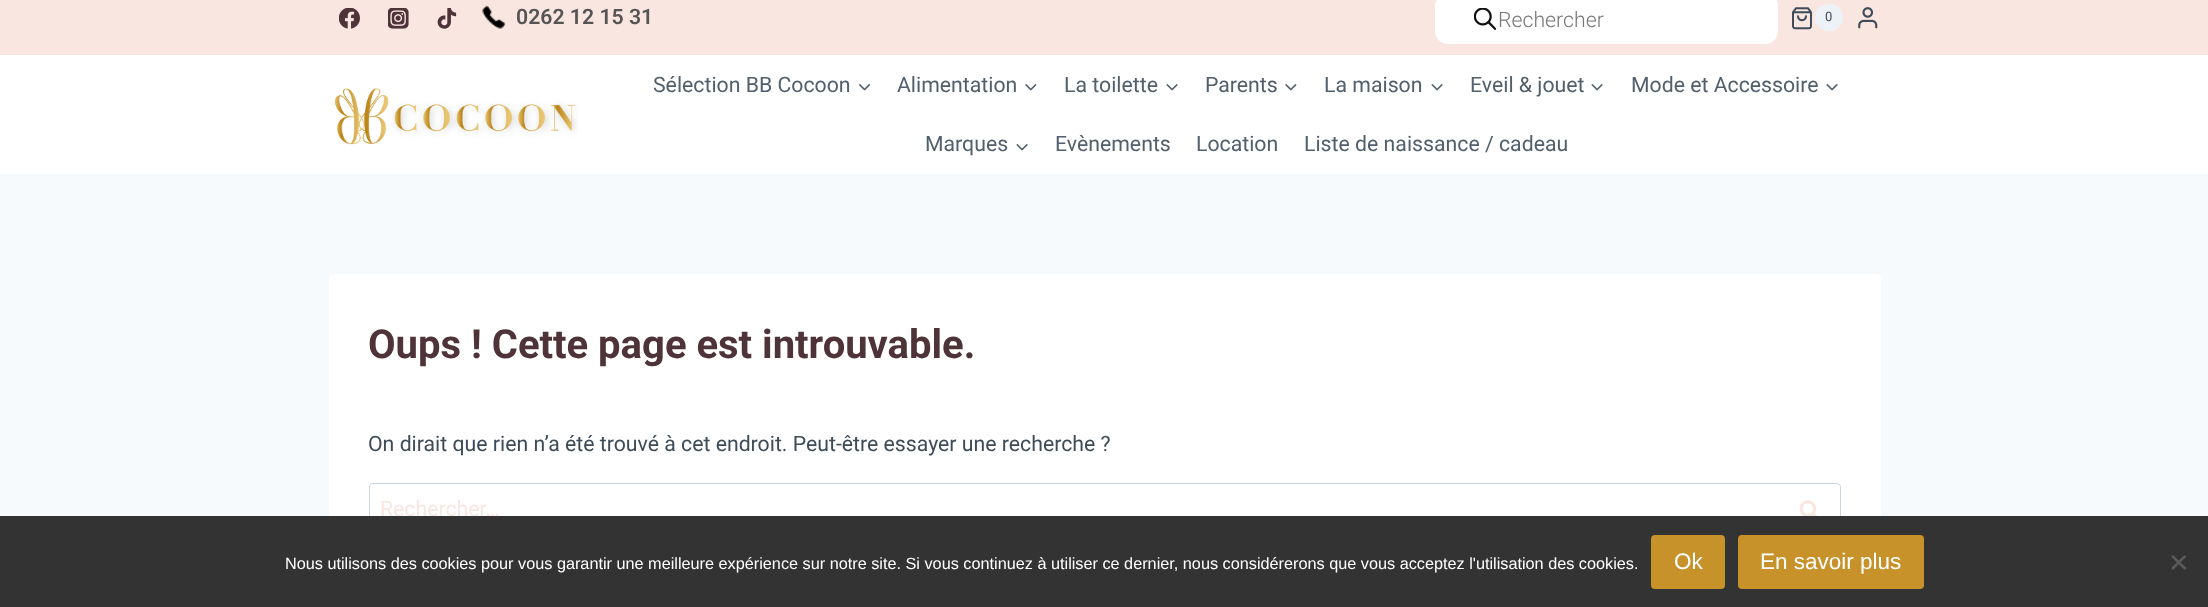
<!DOCTYPE html>
<meta charset="utf-8">
<style>body { margin: 0 } canvas { display: block }</style>
<canvas id="canvas" width="2208" height="607"></canvas>
<script type="module">
  const canvas = document.getElementById("canvas");
  const ctx = canvas.getContext("2d");
  ctx.miterLimit = 4;
  ctx.fontKerning = "normal";
  async function loadImage(src) {
    const img = new Image();
    img.src = src;
    await img.decode();
    return img;
  }

  ctx.fillStyle = "#f7fafc";
  ctx.fillRect(0, 0, 2208, 607);
  ctx.fillStyle = "#ffffff";
  ctx.fillRect(0, 55, 2208, 119);
  ctx.fillStyle = "#fae6e1";
  ctx.fillRect(0, 0, 2208, 55);
  ctx.drawImage(await loadImage("img1.png"), 339, 8, 21, 21);
  ctx.drawImage(await loadImage("img2.png"), 388, 8, 21, 21);
  ctx.drawImage(await loadImage("img3.png"), 437, 8, 20, 21);
  ctx.drawImage(await loadImage("img4.png"), 482, 5, 24, 24);
  ctx.font = "600 21.25px Roboto";
  ctx.fillStyle = "#555555";
  ctx.fillText("0262 12 15 31", 516, 24);
  ctx.fillStyle = "#ffffff";
  ctx.beginPath();
  ctx.roundRect(1435, -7, 343, 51, 13);
  ctx.fill();
  ctx.drawImage(await loadImage("img5.png"), 1474, 8, 22, 22);
  ctx.font = "300 21.25px Roboto";
  ctx.fillStyle = "#777777";
  ctx.fillText("Rechercher", 1498, 27);
  ctx.drawImage(await loadImage("img6.png"), 1792, 7, 20, 23);
  ctx.fillStyle = "#edf2f7";
  ctx.beginPath();
  ctx.roundRect(1815, 4, 28, 27, 13.5);
  ctx.fill();
  ctx.font = "13px Roboto";
  ctx.fillStyle = "#3e4c59";
  ctx.fillText("0", 1825, 21);
  ctx.drawImage(await loadImage("img7.png"), 1858, 7, 20, 22);
  ctx.drawImage(await loadImage("img8.png"), 334, 88, 244, 57);
  ctx.font = "21.25px Roboto";
  ctx.fillStyle = "#52606d";
  ctx.fillText("Sélection BB Cocoon", 653, 92);
  ctx.drawImage(await loadImage("img9.png"), 859, 84, 12, 7);
  ctx.fillText("Alimentation", 897, 92);
  ctx.drawImage(await loadImage("img10.png"), 1025, 84, 12, 7);
  ctx.fillText("La toilette", 1064, 92);
  ctx.drawImage(await loadImage("img11.png"), 1166, 84, 12, 7);
  ctx.fillText("Parents", 1205, 92);
  ctx.drawImage(await loadImage("img10.png"), 1285, 84, 12, 7);
  ctx.fillText("La maison", 1324, 92);
  ctx.drawImage(await loadImage("img11.png"), 1431, 84, 12, 7);
  ctx.fillText("Eveil & jouet", 1470, 92);
  ctx.drawImage(await loadImage("img11.png"), 1591, 84, 12, 7);
  ctx.fillText("Mode et Accessoire", 1631, 92);
  ctx.drawImage(await loadImage("img11.png"), 1826, 84, 12, 7);
  ctx.fillText("Marques", 925, 151);
  ctx.drawImage(await loadImage("img11.png"), 1016, 144, 12, 7);
  ctx.fillText("Evènements", 1055, 151);
  ctx.fillText("Location", 1196, 151);
  ctx.fillText("Liste de naissance / cadeau", 1304, 151);
  ctx.fillStyle = "#ffffff";
  ctx.beginPath();
  ctx.roundRect(329, 274, 1552, 302, 5);
  ctx.fill();
  ctx.font = "bold 40px Roboto";
  ctx.fillStyle = "#4e3339";
  ctx.fillText("Oups ! Cette page est introuvable.", 368, 358);
  ctx.font = "21.25px Roboto";
  ctx.fillStyle = "#3e4c59";
  ctx.fillText("On dirait que rien n’a été trouvé à cet endroit. Peut-être essayer une recherche ?", 368, 451);
  ctx.beginPath();
  ctx.roundRect(369.5, 483.5, 1471, 52, 3.5);
  ctx.strokeStyle = "#cbd5e0";
  ctx.stroke();
  ctx.fillStyle = "#fae6e1";
  ctx.fillText("Rechercher…", 380, 516);
  ctx.drawImage(await loadImage("img12.png"), 1799, 500, 19, 16);
  ctx.fillStyle = "#333333";
  ctx.fillRect(0, 516, 2208, 91);
  ctx.font = "16.25px Liberation Sans";
  ctx.fillStyle = "#ffffff";
  ctx.fillText("Nous utilisons des cookies pour vous garantir une meilleure expérience sur notre site. Si vous continuez à utiliser ce dernier, nous considérerons que vous acceptez l'utilisation des cookies.", 285, 569);
  ctx.fillStyle = "#c79229";
  ctx.beginPath();
  ctx.roundRect(1651, 535, 74, 54, 4);
  ctx.fill();
  ctx.font = "22.5px Liberation Sans";
  ctx.fillStyle = "#ffffff";
  ctx.fillText("Ok", 1674, 569);
  ctx.fillStyle = "#c79229";
  ctx.beginPath();
  ctx.roundRect(1738, 535, 186, 54, 4);
  ctx.fill();
  ctx.fillStyle = "#ffffff";
  ctx.fillText("En savoir plus", 1760, 569);
  ctx.fillStyle = "#5a5a5a";
  ctx.beginPath();
  ctx.moveTo(2184.5, 555);
  ctx.lineTo(2186.5, 556.5);
  ctx.lineTo(2173, 570);
  ctx.lineTo(2171, 568);
  ctx.closePath();
  ctx.fill();
  ctx.beginPath();
  ctx.moveTo(2171, 556.5);
  ctx.lineTo(2173, 555);
  ctx.lineTo(2186.5, 568);
  ctx.lineTo(2184.5, 570);
  ctx.closePath();
  ctx.fill();
</script>
